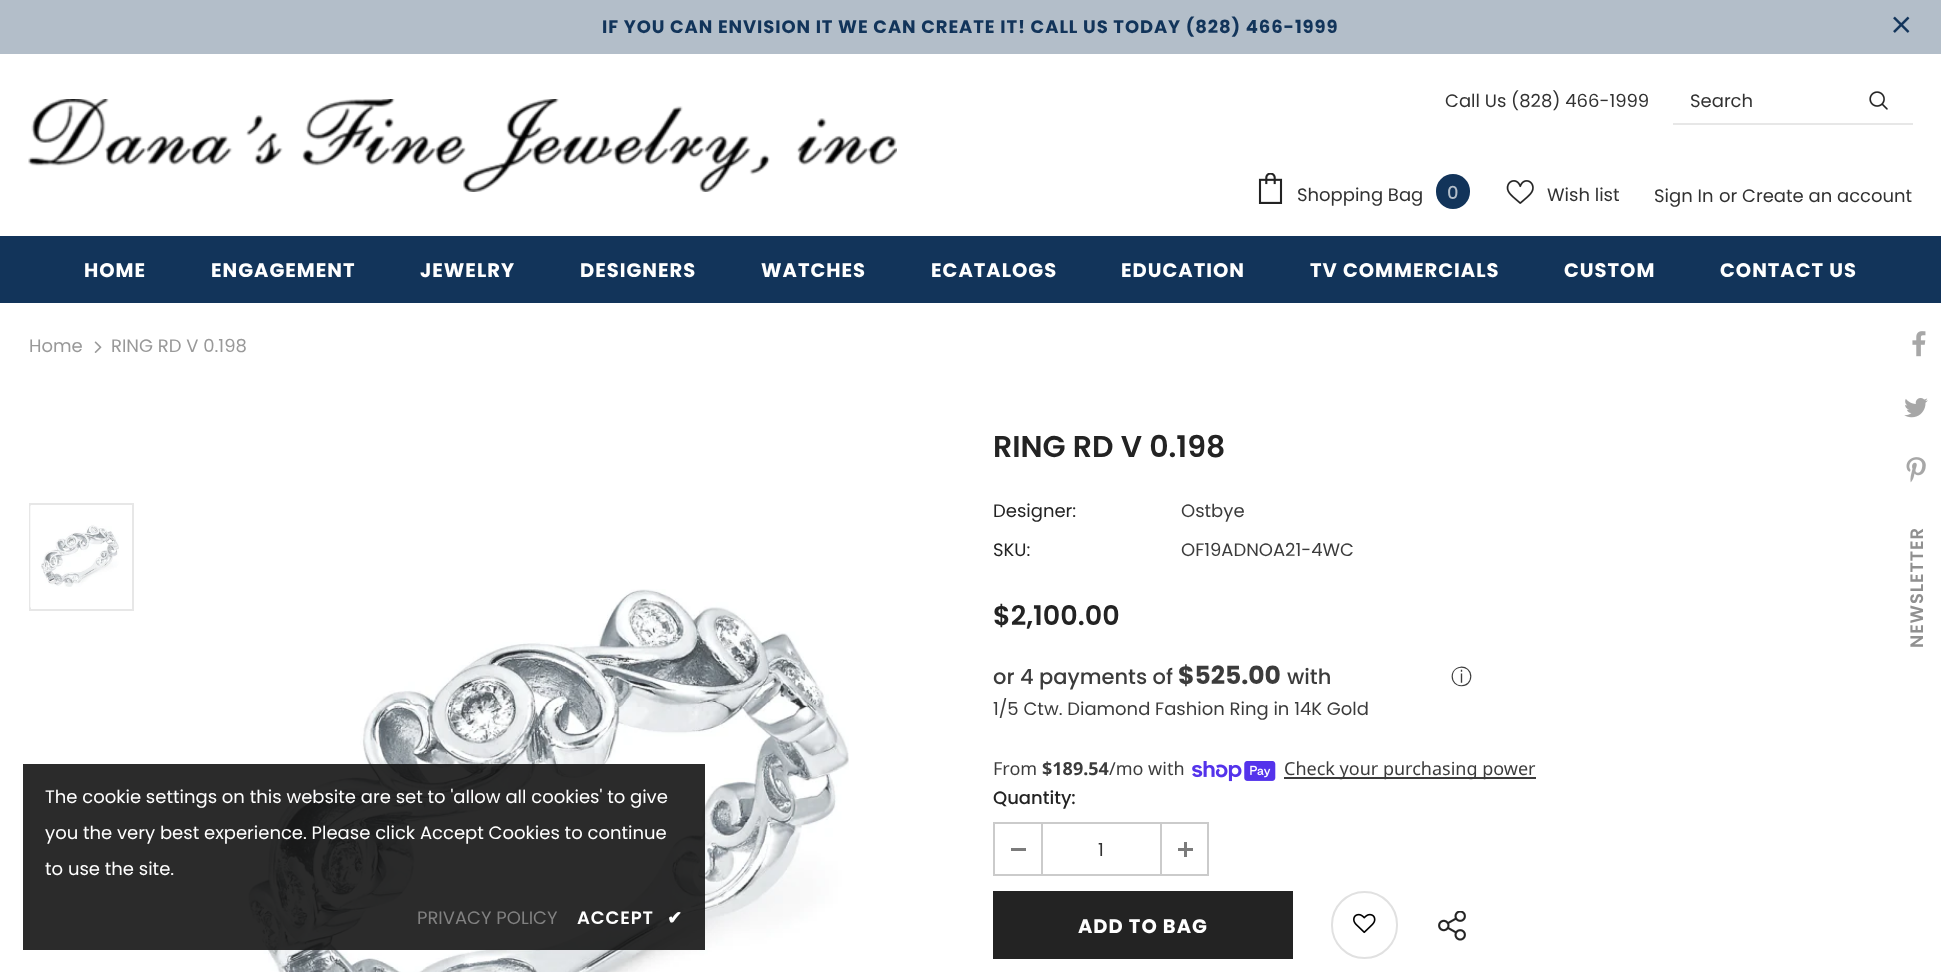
<!DOCTYPE html>
<meta charset="utf-8">
<style>body { margin: 0 } canvas { display: block }</style>
<canvas id="canvas" width="1941" height="972"></canvas>
<script type="module">
  const canvas = document.getElementById("canvas");
  const ctx = canvas.getContext("2d");
  ctx.miterLimit = 4;
  ctx.fontKerning = "normal";
  async function loadImage(src) {
    const img = new Image();
    img.src = src;
    await img.decode();
    return img;
  }

  ctx.fillStyle = "#ffffff";
  ctx.fillRect(0, 0, 1941, 972);
  ctx.fillStyle = "#b3bec9";
  ctx.fillRect(0, 0, 1941, 54);
  ctx.letterSpacing = "0.9px";
  ctx.font = "bold 18px Poppins";
  ctx.fillStyle = "#12345a";
  ctx.fillText("IF YOU CAN ENVISION IT WE CAN CREATE IT! CALL US TODAY (828) 466-1999", 602, 33);
  ctx.drawImage(await loadImage("img1.png"), 1893, 16, 17, 17);
  ctx.drawImage(await loadImage("img2.png"), 28, 99, 869, 93);
  ctx.letterSpacing = "0px";
  ctx.font = "18px Poppins";
  ctx.fillStyle = "#323232";
  ctx.fillText("Call Us (828) 466-1999", 1445, 107);
  ctx.fillStyle = "#e7e7e7";
  ctx.fillRect(1673, 123, 240, 2);
  ctx.fillStyle = "#323232";
  ctx.fillText("Search", 1690, 107);
  ctx.drawImage(await loadImage("img3.png"), 1869, 91, 19, 19);
  ctx.drawImage(await loadImage("img4.png"), 1258, 173, 25, 31);
  ctx.fillText("Shopping Bag", 1297, 201);
  ctx.fillStyle = "#12345a";
  ctx.beginPath();
  ctx.roundRect(1436, 174, 34, 35, 17);
  ctx.fill();
  ctx.font = "500 18px Poppins";
  ctx.fillStyle = "#b3bec9";
  ctx.fillText("0", 1447, 199);
  ctx.drawImage(await loadImage("img5.png"), 1506, 180, 28, 24);
  ctx.font = "18px Poppins";
  ctx.fillStyle = "#323232";
  ctx.fillText("Wish list", 1547, 201);
  ctx.fillText("Sign In", 1654, 202);
  ctx.fillText("or Create an account", 1719, 202);
  ctx.fillStyle = "#12345a";
  ctx.fillRect(0, 236, 1941, 67);
  ctx.letterSpacing = "1px";
  ctx.font = "bold 19.5px Poppins";
  ctx.fillStyle = "#ffffff";
  ctx.fillText("HOME", 84, 277);
  ctx.fillText("ENGAGEMENT", 211, 277);
  ctx.fillText("JEWELRY", 420, 277);
  ctx.fillText("DESIGNERS", 580, 277);
  ctx.fillText("WATCHES", 761, 277);
  ctx.fillText("ECATALOGS", 931, 277);
  ctx.fillText("EDUCATION", 1121, 277);
  ctx.fillText("TV COMMERCIALS", 1310, 277);
  ctx.fillText("CUSTOM", 1564, 277);
  ctx.fillText("CONTACT US", 1720, 277);
  ctx.letterSpacing = "0px";
  ctx.font = "18px Poppins";
  ctx.fillStyle = "#999999";
  ctx.fillText("Home", 29, 352);
  ctx.drawImage(await loadImage("img6.png"), 94, 341, 8, 12);
  ctx.fillText("RING RD V 0.198", 111, 352);
  ctx.strokeStyle = "#e7e7e7";
  ctx.lineWidth = 2;
  ctx.strokeRect(30, 504, 103, 106);
  ctx.drawImage(await loadImage("img7.png"), 30, 505, 89, 103);
  ctx.drawImage(await loadImage("img8.png"), 247, 589, 602, 383);
  ctx.font = "600 30px Poppins";
  ctx.fillStyle = "#232323";
  ctx.fillText("RING RD V 0.198", 993, 457);
  ctx.font = "18px Poppins";
  ctx.fillText("Designer:", 993, 517);
  ctx.fillStyle = "#3c3c3c";
  ctx.fillText("Ostbye", 1181, 517);
  ctx.fillStyle = "#232323";
  ctx.fillText("SKU:", 993, 556);
  ctx.fillStyle = "#3c3c3c";
  ctx.fillText("OF19ADNOA21-4WC", 1181, 556);
  ctx.font = "600 27px Poppins";
  ctx.fillStyle = "#232323";
  ctx.fillText("$2,100.00", 993, 625);
  ctx.font = "500 21px Poppins";
  ctx.fillStyle = "#3c3c3c";
  ctx.fillText("or 4 payments of", 993, 684);
  ctx.font = "bold 25px Poppins";
  ctx.fillText("$525.00", 1178, 684);
  ctx.font = "500 21px Poppins";
  ctx.fillText("with", 1287, 684);
  ctx.font = "500 21px WenQuanYi Zen Hei";
  ctx.fillText("ⓘ", 1451, 684);
  ctx.font = "18px Poppins";
  ctx.fillText("1/5 Ctw. Diamond Fashion Ring in 14K Gold", 993, 715);
  ctx.font = "18px Noto Sans";
  ctx.fillText("From", 993, 775);
  ctx.font = "bold 18px Noto Sans";
  ctx.fillText("$189.54", 1042, 775);
  ctx.font = "18px Noto Sans";
  ctx.fillText("/mo with", 1109, 775);
  ctx.drawImage(await loadImage("img9.png"), 1192, 761, 84, 21);
  ctx.fillRect(1284, 777, 252, 2);
  ctx.fillText("Check your purchasing power", 1284, 775);
  ctx.font = "500 18px Poppins";
  ctx.fillStyle = "#232323";
  ctx.fillText("Quantity:", 993, 804);
  ctx.strokeStyle = "#cbcbcb";
  ctx.strokeRect(994, 823, 214, 52);
  ctx.fillStyle = "#cbcbcb";
  ctx.fillRect(1041, 824, 2, 51);
  ctx.fillStyle = "#7b7b7b";
  ctx.fillRect(1011, 848, 15, 3);
  ctx.font = "18px Poppins";
  ctx.fillStyle = "#323232";
  ctx.fillText("1", 1098, 856);
  ctx.fillStyle = "#cbcbcb";
  ctx.fillRect(1160, 824, 2, 51);
  ctx.fillStyle = "#7b7b7b";
  ctx.fillRect(1178, 848, 15, 3);
  ctx.fillRect(1184, 842, 3, 15);
  ctx.fillStyle = "#232323";
  ctx.fillRect(993, 891, 300, 68);
  ctx.letterSpacing = "1px";
  ctx.font = "bold 19.5px Poppins";
  ctx.fillStyle = "#ffffff";
  ctx.fillText("ADD TO BAG", 1078, 933);
  ctx.beginPath();
  ctx.roundRect(1332, 892, 65, 66, 32.5);
  ctx.strokeStyle = "#e1e1e1";
  ctx.stroke();
  ctx.drawImage(await loadImage("img10.png"), 1353, 913, 23, 21);
  ctx.drawImage(await loadImage("img11.png"), 1438, 911, 28, 30);
  ctx.fillStyle = "rgba(20, 20, 20, 0.9)";
  ctx.fillRect(23, 764, 682, 186);
  ctx.letterSpacing = "0px";
  ctx.font = "18px Poppins";
  ctx.fillStyle = "#ffffff";
  ctx.fillText("The cookie settings on this website are set to 'allow all cookies' to give", 45, 803);
  ctx.fillText("you the very best experience. Please click Accept Cookies to continue", 45, 839);
  ctx.fillText("to use the site.", 45, 875);
  ctx.fillStyle = "#818181";
  ctx.fillText("PRIVACY POLICY", 417, 924);
  ctx.letterSpacing = "0.9px";
  ctx.font = "600 18px Poppins";
  ctx.fillStyle = "#ffffff";
  ctx.fillText("ACCEPT", 577, 924);
  ctx.font = "bold 18px DejaVu Sans";
  ctx.fillText("✔", 667, 924);
  ctx.drawImage(await loadImage("img12.png"), 1912, 331, 14, 26);
  ctx.drawImage(await loadImage("img13.png"), 1904, 398, 24, 20);
  ctx.drawImage(await loadImage("img14.png"), 1906, 457, 20, 26);
  ctx.font = "600 18px Poppins";
  ctx.fillStyle = "#909090";
  ctx.save();
  ctx.translate(1923, 648);
  ctx.rotate(-90 * Math.PI / 180);
  ctx.fillText("NEWSLETTER", 0, 0);
  ctx.restore();
</script>
